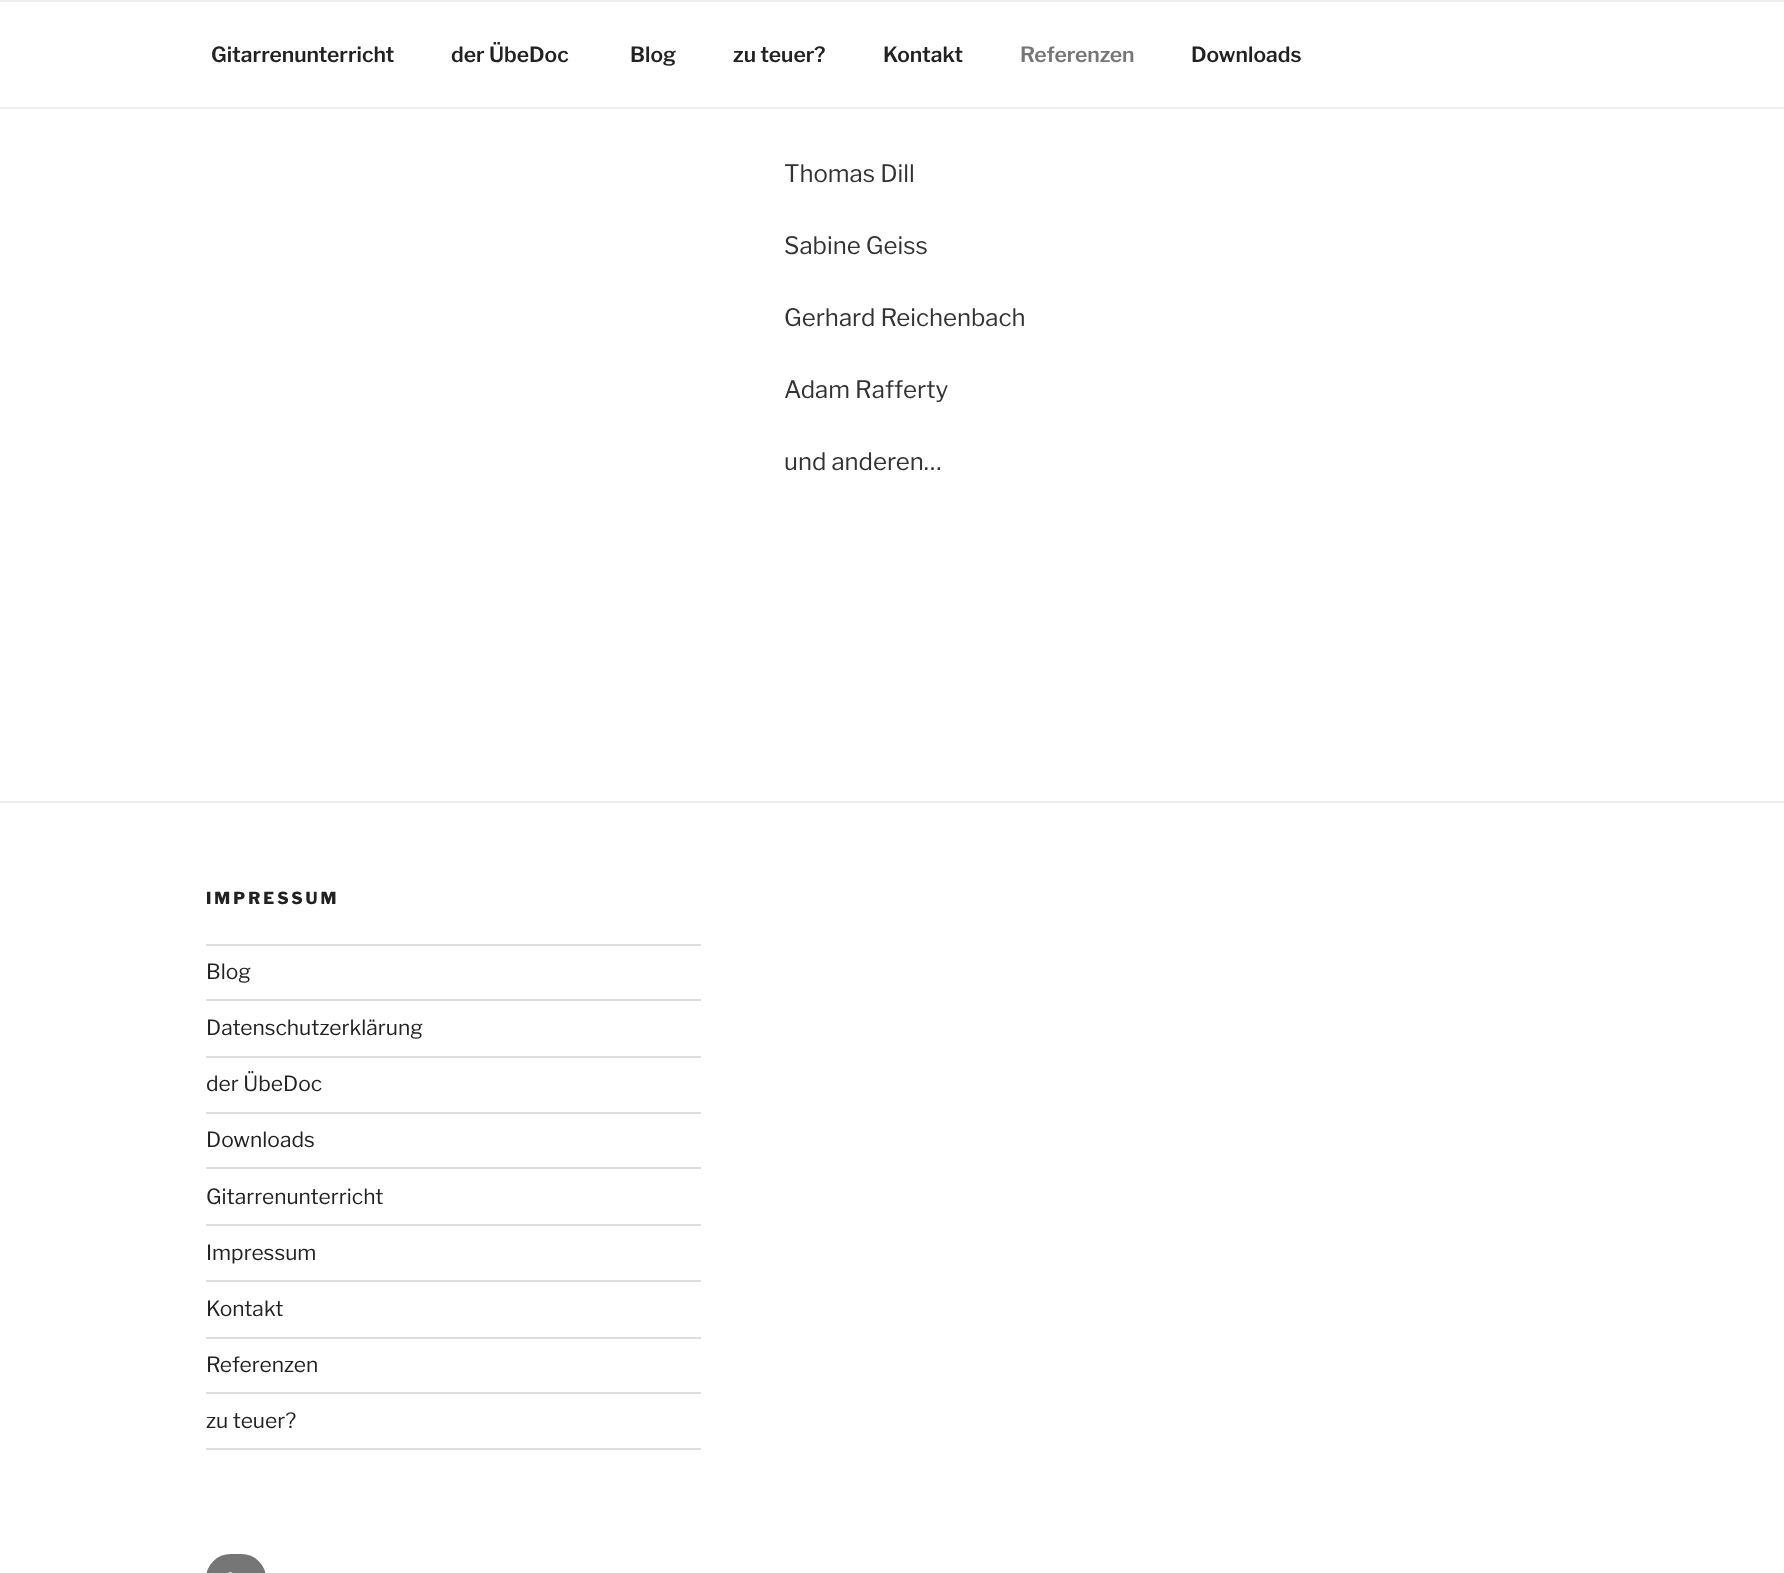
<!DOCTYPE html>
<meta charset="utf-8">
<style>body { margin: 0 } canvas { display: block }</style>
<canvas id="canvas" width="1784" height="1573"></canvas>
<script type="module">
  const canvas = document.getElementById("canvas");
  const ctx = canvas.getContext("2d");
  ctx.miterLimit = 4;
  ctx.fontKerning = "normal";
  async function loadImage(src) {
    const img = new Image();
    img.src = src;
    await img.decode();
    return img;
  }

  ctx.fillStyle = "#ffffff";
  ctx.fillRect(0, 0, 1784, 1573);
  ctx.fillStyle = "#eeeeee";
  ctx.fillRect(0, 0, 1784, 2);
  ctx.fillRect(0, 107, 1784, 2);
  ctx.font = "600 21px Libre Franklin";
  ctx.fillStyle = "#222222";
  ctx.fillText("Gitarrenunterricht", 211, 62);
  ctx.fillText("der ÜbeDoc", 451, 62);
  ctx.fillText("Blog", 630, 62);
  ctx.fillText("zu teuer?", 733, 62);
  ctx.fillText("Kontakt", 883, 62);
  ctx.fillStyle = "#767676";
  ctx.fillText("Referenzen", 1020, 62);
  ctx.fillStyle = "#222222";
  ctx.fillText("Downloads", 1191, 62);
  ctx.font = "24px Libre Franklin";
  ctx.fillStyle = "#333333";
  ctx.fillText("Thomas Dill", 784, 182);
  ctx.fillText("Sabine Geiss", 784, 254);
  ctx.fillText("Gerhard Reichenbach", 784, 326);
  ctx.fillText("Adam Rafferty", 784, 398);
  ctx.fillText("und anderen…", 784, 470);
  ctx.fillStyle = "#eeeeee";
  ctx.fillRect(0, 801, 1784, 2);
  ctx.letterSpacing = "3px";
  ctx.font = "800 16.5px Libre Franklin";
  ctx.fillStyle = "#222222";
  ctx.fillText("IMPRESSUM", 206, 904);
  ctx.fillStyle = "#dddddd";
  ctx.fillRect(206, 944, 495, 2);
  ctx.fillRect(206, 999, 495, 2);
  ctx.letterSpacing = "0px";
  ctx.font = "21px Libre Franklin";
  ctx.fillStyle = "#222222";
  ctx.fillText("Blog", 206, 979);
  ctx.fillStyle = "#dddddd";
  ctx.fillRect(206, 1056, 495, 2);
  ctx.fillStyle = "#222222";
  ctx.fillText("Datenschutzerklärung", 206, 1035);
  ctx.fillStyle = "#dddddd";
  ctx.fillRect(206, 1112, 495, 2);
  ctx.fillStyle = "#222222";
  ctx.fillText("der ÜbeDoc", 206, 1091);
  ctx.fillStyle = "#dddddd";
  ctx.fillRect(206, 1167, 495, 2);
  ctx.fillStyle = "#222222";
  ctx.fillText("Downloads", 206, 1147);
  ctx.fillStyle = "#dddddd";
  ctx.fillRect(206, 1224, 495, 2);
  ctx.fillStyle = "#222222";
  ctx.fillText("Gitarrenunterricht", 206, 1204);
  ctx.fillStyle = "#dddddd";
  ctx.fillRect(206, 1280, 495, 2);
  ctx.fillStyle = "#222222";
  ctx.fillText("Impressum", 206, 1260);
  ctx.fillStyle = "#dddddd";
  ctx.fillRect(206, 1337, 495, 2);
  ctx.fillStyle = "#222222";
  ctx.fillText("Kontakt", 206, 1316);
  ctx.fillStyle = "#dddddd";
  ctx.fillRect(206, 1392, 495, 2);
  ctx.fillStyle = "#222222";
  ctx.fillText("Referenzen", 206, 1372);
  ctx.fillStyle = "#dddddd";
  ctx.fillRect(206, 1448, 495, 2);
  ctx.fillStyle = "#222222";
  ctx.fillText("zu teuer?", 206, 1428);
  ctx.fillStyle = "#767676";
  ctx.beginPath();
  ctx.roundRect(206, 1554, 60, 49, 30);
  ctx.fill();
  ctx.drawImage(await loadImage("img1.png"), 228, 1572, 5, 1);
</script>
